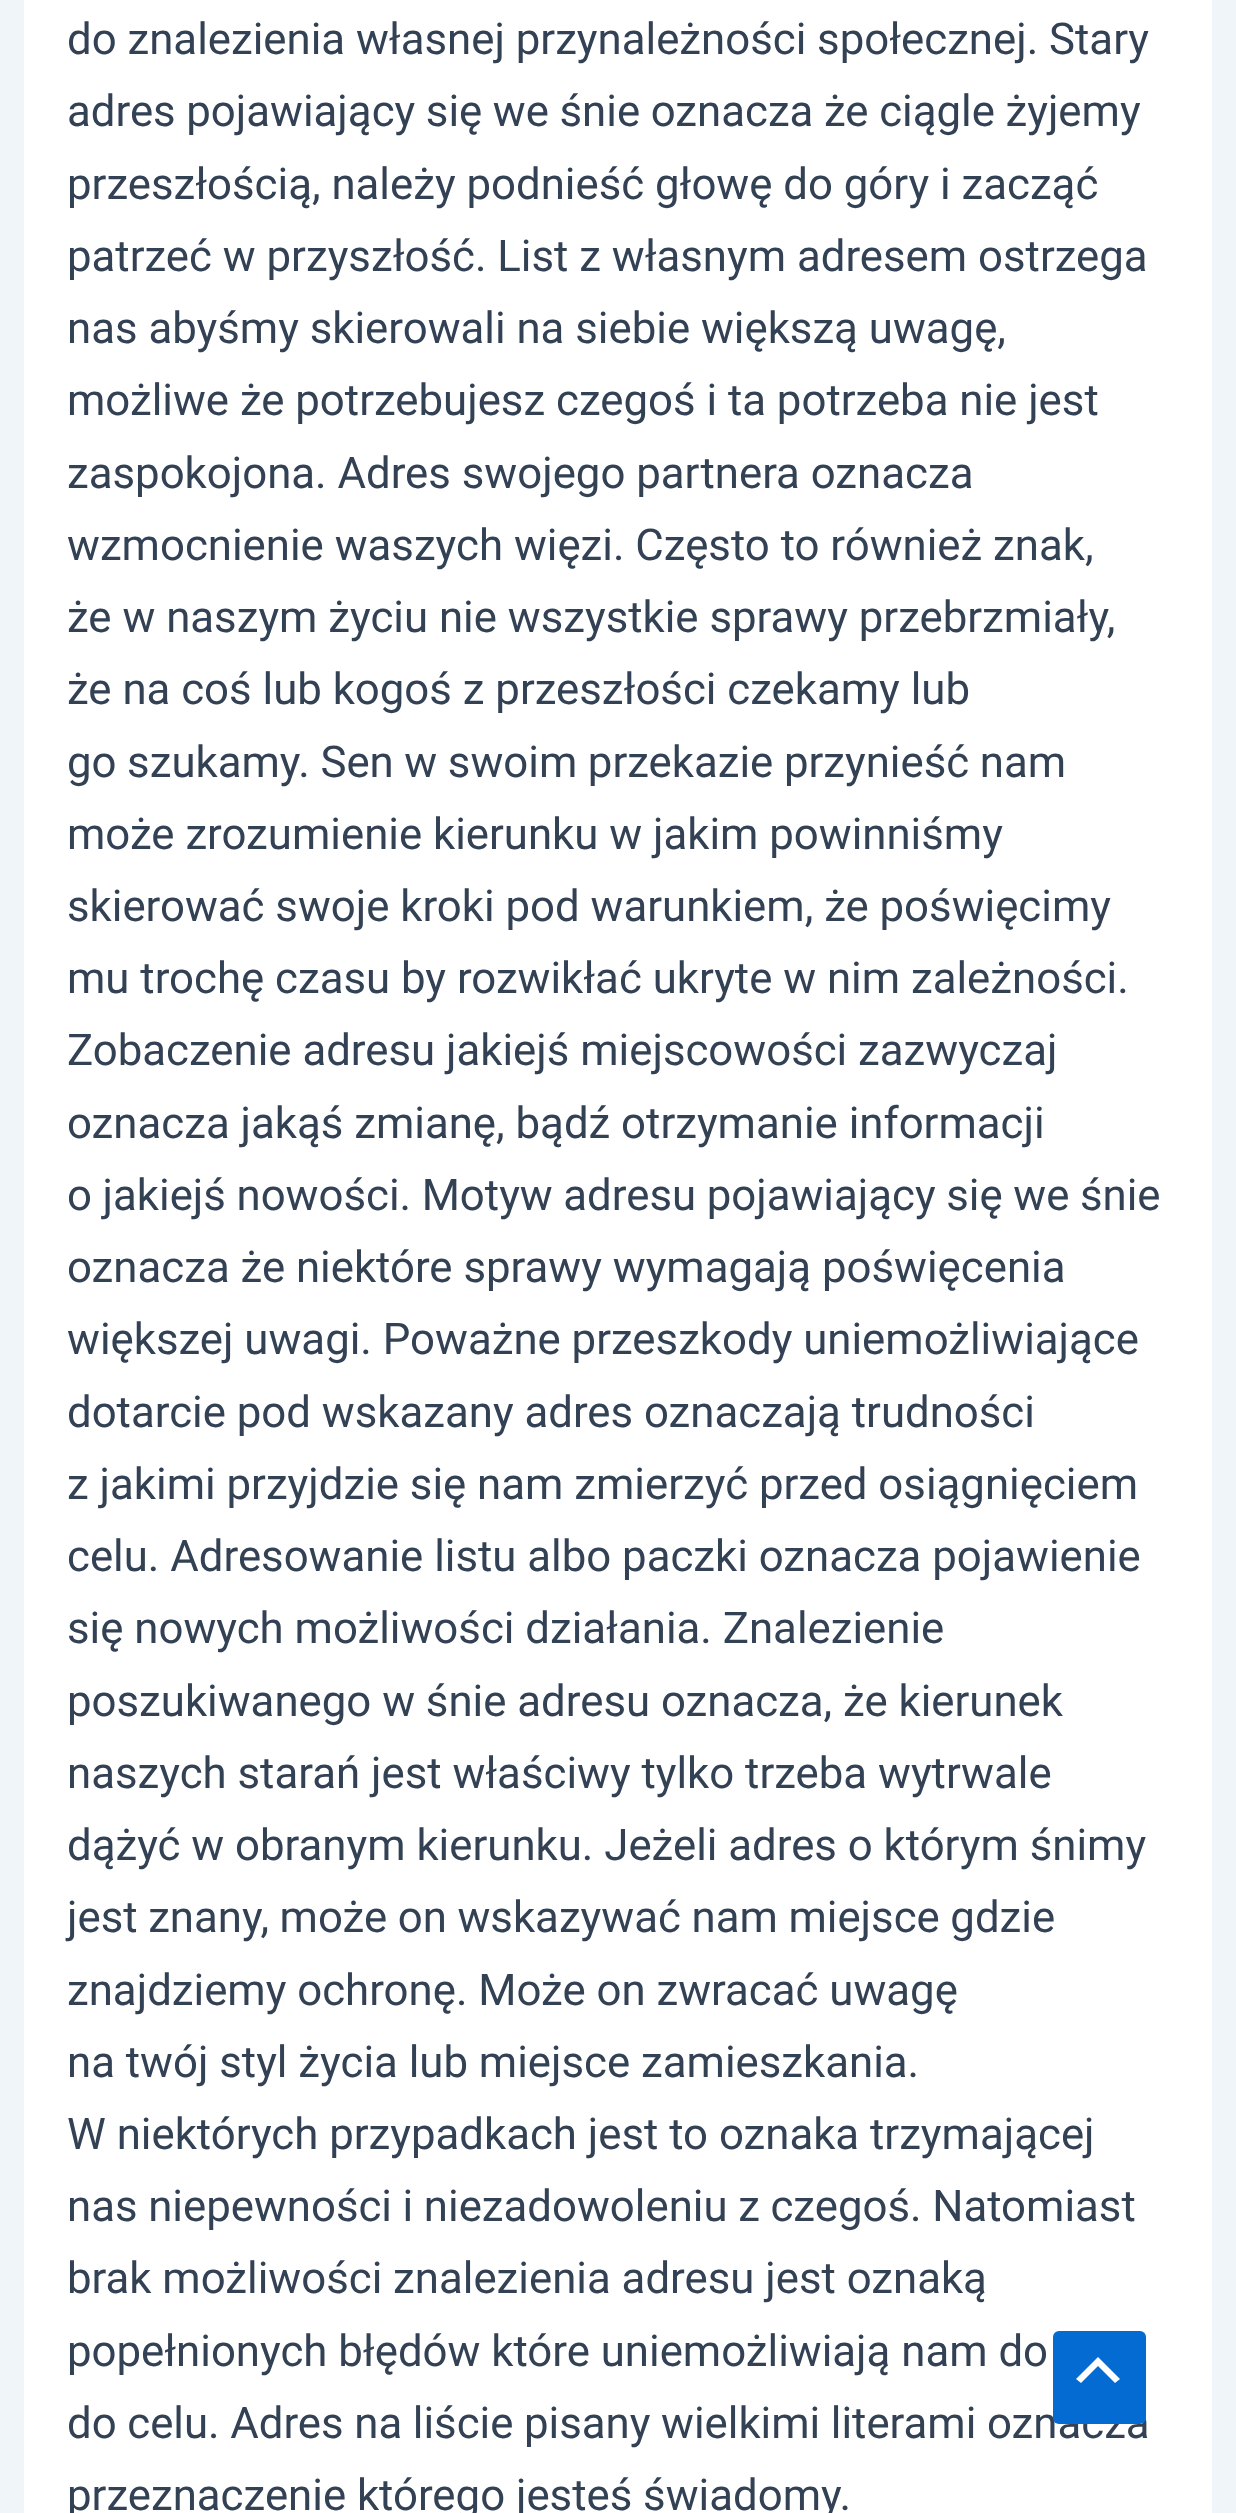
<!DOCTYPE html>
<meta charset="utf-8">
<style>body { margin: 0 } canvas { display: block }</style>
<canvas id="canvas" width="1236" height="2513"></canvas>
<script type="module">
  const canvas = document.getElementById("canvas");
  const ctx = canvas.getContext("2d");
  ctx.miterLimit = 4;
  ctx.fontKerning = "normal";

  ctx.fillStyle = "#f0f5fa";
  ctx.fillRect(0, 0, 1236, 2513);
  ctx.fillStyle = "#ffffff";
  ctx.fillRect(24, 0, 1188, 2513);
  ctx.font = "43.75px Roboto";
  ctx.fillStyle = "#334155";
  ctx.fillText("do znalezienia własnej przynależności społecznej. Stary", 67, 54);
  ctx.wordSpacing = "-0.25px";
  ctx.fillText("adres pojawiający się we śnie oznacza że ciągle żyjemy", 67, 126);
  ctx.wordSpacing = "0px";
  ctx.fillText("przeszłością, należy podnieść głowę do góry i zacząć", 67, 199);
  ctx.fillText("patrzeć w przyszłość. List z własnym adresem ostrzega", 67, 271);
  ctx.fillText("nas abyśmy skierowali na siebie większą uwagę,", 67, 343);
  ctx.fillText("możliwe że potrzebujesz czegoś i ta potrzeba nie jest", 67, 415);
  ctx.fillText("zaspokojona. Adres swojego partnera oznacza", 67, 488);
  ctx.fillText("wzmocnienie waszych więzi. Często to również znak,", 67, 560);
  ctx.fillText("że w naszym życiu nie wszystkie sprawy przebrzmiały,", 67, 632);
  ctx.fillText("że na coś lub kogoś z przeszłości czekamy lub", 67, 704);
  ctx.wordSpacing = "-0.25px";
  ctx.fillText("go szukamy. Sen w swoim przekazie przynieść nam", 67, 777);
  ctx.wordSpacing = "0px";
  ctx.fillText("może zrozumienie kierunku w jakim powinniśmy", 67, 849);
  ctx.fillText("skierować swoje kroki pod warunkiem, że poświęcimy", 67, 921);
  ctx.fillText("mu trochę czasu by rozwikłać ukryte w nim zależności.", 67, 993);
  ctx.fillText("Zobaczenie adresu jakiejś miejscowości zazwyczaj", 67, 1065);
  ctx.fillText("oznacza jakąś zmianę, bądź otrzymanie informacji", 67, 1138);
  ctx.wordSpacing = "-0.25px";
  ctx.fillText("o jakiejś nowości. Motyw adresu pojawiający się we śnie", 67, 1210);
  ctx.wordSpacing = "0px";
  ctx.fillText("oznacza że niektóre sprawy wymagają poświęcenia", 67, 1282);
  ctx.fillText("większej uwagi. Poważne przeszkody uniemożliwiające", 67, 1354);
  ctx.fillText("dotarcie pod wskazany adres oznaczają trudności", 67, 1427);
  ctx.fillText("z jakimi przyjdzie się nam zmierzyć przed osiągnięciem", 67, 1499);
  ctx.fillText("celu. Adresowanie listu albo paczki oznacza pojawienie", 67, 1571);
  ctx.fillText("się nowych możliwości działania. Znalezienie", 67, 1643);
  ctx.fillText("poszukiwanego w śnie adresu oznacza, że kierunek", 67, 1716);
  ctx.fillText("naszych starań jest właściwy tylko trzeba wytrwale", 67, 1788);
  ctx.fillText("dążyć w obranym kierunku. Jeżeli adres o którym śnimy", 67, 1860);
  ctx.wordSpacing = "-0.25px";
  ctx.fillText("jest znany, może on wskazywać nam miejsce gdzie", 67, 1932);
  ctx.wordSpacing = "0px";
  ctx.fillText("znajdziemy ochronę. Może on zwracać uwagę", 67, 2005);
  ctx.fillText("na twój styl życia lub miejsce zamieszkania.", 67, 2077);
  ctx.fillText("W niektórych przypadkach jest to oznaka trzymającej", 67, 2149);
  ctx.wordSpacing = "-0.25px";
  ctx.fillText("nas niepewności i niezadowoleniu z czegoś. Natomiast", 67, 2221);
  ctx.wordSpacing = "0px";
  ctx.fillText("brak możliwości znalezienia adresu jest oznaką", 67, 2293);
  ctx.fillText("popełnionych błędów które uniemożliwiają nam do", 67, 2366);
  ctx.wordSpacing = "-0.25px";
  ctx.fillText("do celu. Adres na liście pisany wielkimi literami oznacza", 67, 2438);
  ctx.wordSpacing = "0px";
  ctx.fillText("przeznaczenie którego jesteś świadomy.", 67, 2510);
  ctx.fillStyle = "#046bd2";
  ctx.beginPath();
  ctx.roundRect(1053, 2331, 93, 93, 6);
  ctx.fill();
  ctx.fillStyle = "#ffffff";
  ctx.beginPath();
  ctx.moveTo(1120, 2379);
  ctx.lineTo(1098, 2357);
  ctx.lineTo(1076, 2379);
  ctx.lineTo(1081, 2383);
  ctx.lineTo(1098, 2366);
  ctx.lineTo(1115, 2383);
  ctx.closePath();
  ctx.fill();
</script>
